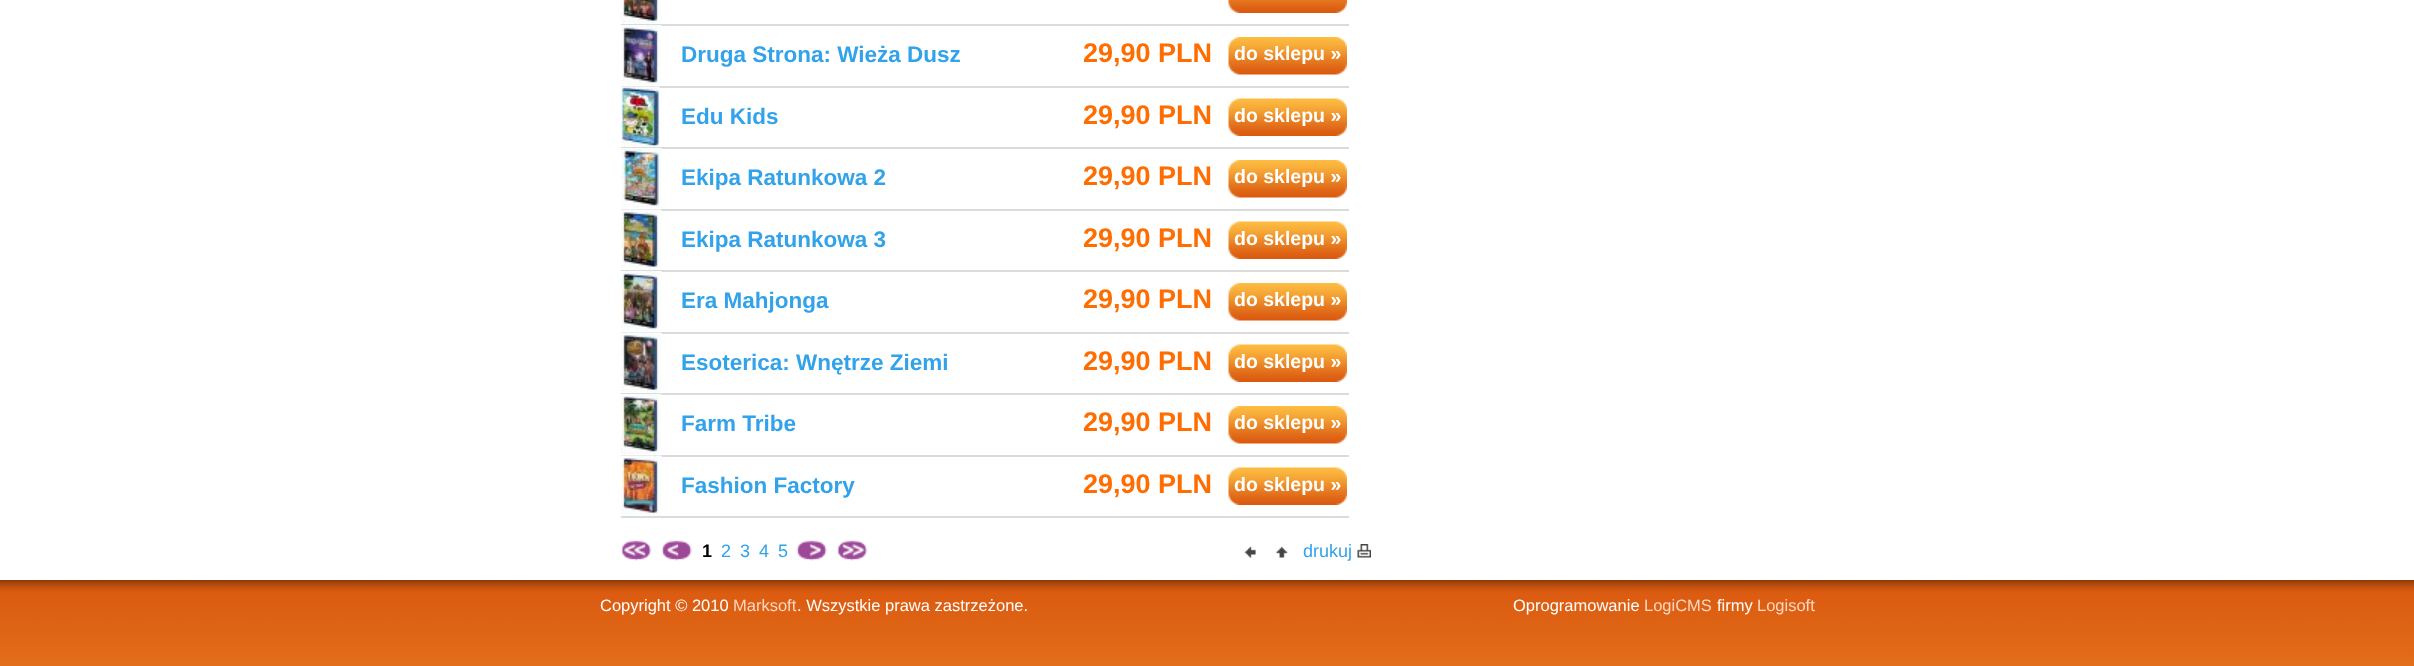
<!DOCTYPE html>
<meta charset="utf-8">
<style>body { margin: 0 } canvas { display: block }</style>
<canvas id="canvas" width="2414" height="666"></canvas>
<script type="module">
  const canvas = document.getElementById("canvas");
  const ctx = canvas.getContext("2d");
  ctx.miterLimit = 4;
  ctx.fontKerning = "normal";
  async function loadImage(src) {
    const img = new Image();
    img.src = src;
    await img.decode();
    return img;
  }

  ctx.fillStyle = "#ffffff";
  ctx.fillRect(0, 0, 2414, 666);
  ctx.fillStyle = "#dbdbdb";
  ctx.fillRect(621, 24, 728, 2);
  ctx.drawImage(await loadImage("img1.png"), 621, 0, 41, 24);
  ctx.drawImage(await loadImage("img2.png"), 1228, 0, 119, 13);
  ctx.fillRect(621, 86, 728, 2);
  ctx.drawImage(await loadImage("img3.png"), 621, 25, 41, 60);
  ctx.font = "bold 22.5px Liberation Sans";
  ctx.fillStyle = "#32a2ea";
  ctx.fillText("Druga Strona: Wieża Dusz", 681, 62);
  ctx.font = "bold 27px Liberation Sans";
  ctx.fillStyle = "#ff6c00";
  ctx.fillText("29,90 PLN", 1083, 62);
  ctx.drawImage(await loadImage("img4.png"), 1228, 37, 119, 38);
  ctx.font = "bold 19.5px Liberation Sans";
  ctx.fillStyle = "#ffffff";
  ctx.fillText("do sklepu »", 1234, 60);
  ctx.fillStyle = "#dbdbdb";
  ctx.fillRect(621, 147, 728, 2);
  ctx.drawImage(await loadImage("img5.png"), 621, 86, 39, 61);
  ctx.font = "bold 22.5px Liberation Sans";
  ctx.fillStyle = "#32a2ea";
  ctx.fillText("Edu Kids", 681, 124);
  ctx.font = "bold 27px Liberation Sans";
  ctx.fillStyle = "#ff6c00";
  ctx.fillText("29,90 PLN", 1083, 124);
  ctx.drawImage(await loadImage("img6.png"), 1228, 98, 119, 38);
  ctx.font = "bold 19.5px Liberation Sans";
  ctx.fillStyle = "#ffffff";
  ctx.fillText("do sklepu »", 1234, 122);
  ctx.fillStyle = "#dbdbdb";
  ctx.fillRect(621, 209, 728, 2);
  ctx.drawImage(await loadImage("img7.png"), 621, 148, 41, 60);
  ctx.font = "bold 22.5px Liberation Sans";
  ctx.fillStyle = "#32a2ea";
  ctx.fillText("Ekipa Ratunkowa 2", 681, 185);
  ctx.font = "bold 27px Liberation Sans";
  ctx.fillStyle = "#ff6c00";
  ctx.fillText("29,90 PLN", 1083, 185);
  ctx.drawImage(await loadImage("img4.png"), 1228, 160, 119, 38);
  ctx.font = "bold 19.5px Liberation Sans";
  ctx.fillStyle = "#ffffff";
  ctx.fillText("do sklepu »", 1234, 183);
  ctx.fillStyle = "#dbdbdb";
  ctx.fillRect(621, 270, 728, 2);
  ctx.drawImage(await loadImage("img8.png"), 621, 209, 41, 61);
  ctx.font = "bold 22.5px Liberation Sans";
  ctx.fillStyle = "#32a2ea";
  ctx.fillText("Ekipa Ratunkowa 3", 681, 247);
  ctx.font = "bold 27px Liberation Sans";
  ctx.fillStyle = "#ff6c00";
  ctx.fillText("29,90 PLN", 1083, 247);
  ctx.drawImage(await loadImage("img6.png"), 1228, 221, 119, 38);
  ctx.font = "bold 19.5px Liberation Sans";
  ctx.fillStyle = "#ffffff";
  ctx.fillText("do sklepu »", 1234, 245);
  ctx.fillStyle = "#dbdbdb";
  ctx.fillRect(621, 332, 728, 2);
  ctx.drawImage(await loadImage("img9.png"), 621, 271, 41, 60);
  ctx.font = "bold 22.5px Liberation Sans";
  ctx.fillStyle = "#32a2ea";
  ctx.fillText("Era Mahjonga", 681, 308);
  ctx.font = "bold 27px Liberation Sans";
  ctx.fillStyle = "#ff6c00";
  ctx.fillText("29,90 PLN", 1083, 308);
  ctx.drawImage(await loadImage("img4.png"), 1228, 283, 119, 38);
  ctx.font = "bold 19.5px Liberation Sans";
  ctx.fillStyle = "#ffffff";
  ctx.fillText("do sklepu »", 1234, 306);
  ctx.fillStyle = "#dbdbdb";
  ctx.fillRect(621, 393, 728, 2);
  ctx.drawImage(await loadImage("img10.png"), 621, 332, 41, 61);
  ctx.font = "bold 22.5px Liberation Sans";
  ctx.fillStyle = "#32a2ea";
  ctx.fillText("Esoterica: Wnętrze Ziemi", 681, 370);
  ctx.font = "bold 27px Liberation Sans";
  ctx.fillStyle = "#ff6c00";
  ctx.fillText("29,90 PLN", 1083, 370);
  ctx.drawImage(await loadImage("img6.png"), 1228, 344, 119, 38);
  ctx.font = "bold 19.5px Liberation Sans";
  ctx.fillStyle = "#ffffff";
  ctx.fillText("do sklepu »", 1234, 368);
  ctx.fillStyle = "#dbdbdb";
  ctx.fillRect(621, 455, 728, 2);
  ctx.drawImage(await loadImage("img11.png"), 621, 394, 41, 60);
  ctx.font = "bold 22.5px Liberation Sans";
  ctx.fillStyle = "#32a2ea";
  ctx.fillText("Farm Tribe", 681, 431);
  ctx.font = "bold 27px Liberation Sans";
  ctx.fillStyle = "#ff6c00";
  ctx.fillText("29,90 PLN", 1083, 431);
  ctx.drawImage(await loadImage("img4.png"), 1228, 406, 119, 38);
  ctx.font = "bold 19.5px Liberation Sans";
  ctx.fillStyle = "#ffffff";
  ctx.fillText("do sklepu »", 1234, 429);
  ctx.fillStyle = "#dbdbdb";
  ctx.fillRect(621, 516, 728, 2);
  ctx.drawImage(await loadImage("img12.png"), 621, 455, 41, 61);
  ctx.font = "bold 22.5px Liberation Sans";
  ctx.fillStyle = "#32a2ea";
  ctx.fillText("Fashion Factory", 681, 493);
  ctx.font = "bold 27px Liberation Sans";
  ctx.fillStyle = "#ff6c00";
  ctx.fillText("29,90 PLN", 1083, 493);
  ctx.drawImage(await loadImage("img6.png"), 1228, 467, 119, 38);
  ctx.font = "bold 19.5px Liberation Sans";
  ctx.fillStyle = "#ffffff";
  ctx.fillText("do sklepu »", 1234, 491);
  ctx.drawImage(await loadImage("img13.png"), 621, 540, 31, 21);
  ctx.drawImage(await loadImage("img14.png"), 661, 540, 31, 21);
  ctx.font = "bold 18px Liberation Sans";
  ctx.fillStyle = "#000000";
  ctx.fillText("1", 702, 557);
  ctx.font = "18px Liberation Sans";
  ctx.fillStyle = "#32a2ea";
  ctx.fillText("2", 721, 557);
  ctx.fillText("3", 740, 557);
  ctx.fillText("4", 759, 557);
  ctx.fillText("5", 778, 557);
  ctx.drawImage(await loadImage("img15.png"), 796, 540, 31, 21);
  ctx.drawImage(await loadImage("img16.png"), 837, 540, 31, 21);
  ctx.drawImage(await loadImage("img17.png"), 1244, 546, 12, 12);
  ctx.drawImage(await loadImage("img18.png"), 1276, 546, 12, 12);
  ctx.fillText("drukuj", 1303, 557);
  ctx.drawImage(await loadImage("img19.png"), 1357, 544, 14, 14);
  ctx.drawImage(await loadImage("img20.png"), 0, 580, 2414, 86);
  ctx.font = "16.5px Liberation Sans";
  ctx.fillStyle = "#ffffff";
  ctx.fillText("Copyright © 2010", 600, 611);
  ctx.fillStyle = "#fcd7c2";
  ctx.fillText("Marksoft", 733, 611);
  ctx.fillStyle = "#ffffff";
  ctx.fillText(". Wszystkie prawa zastrzeżone.", 797, 611);
  ctx.fillText("Oprogramowanie", 1513, 611);
  ctx.fillStyle = "#fcd7c2";
  ctx.fillText("LogiCMS", 1644, 611);
  ctx.fillStyle = "#ffffff";
  ctx.fillText("firmy", 1717, 611);
  ctx.fillStyle = "#fcd7c2";
  ctx.fillText("Logisoft", 1757, 611);
</script>
